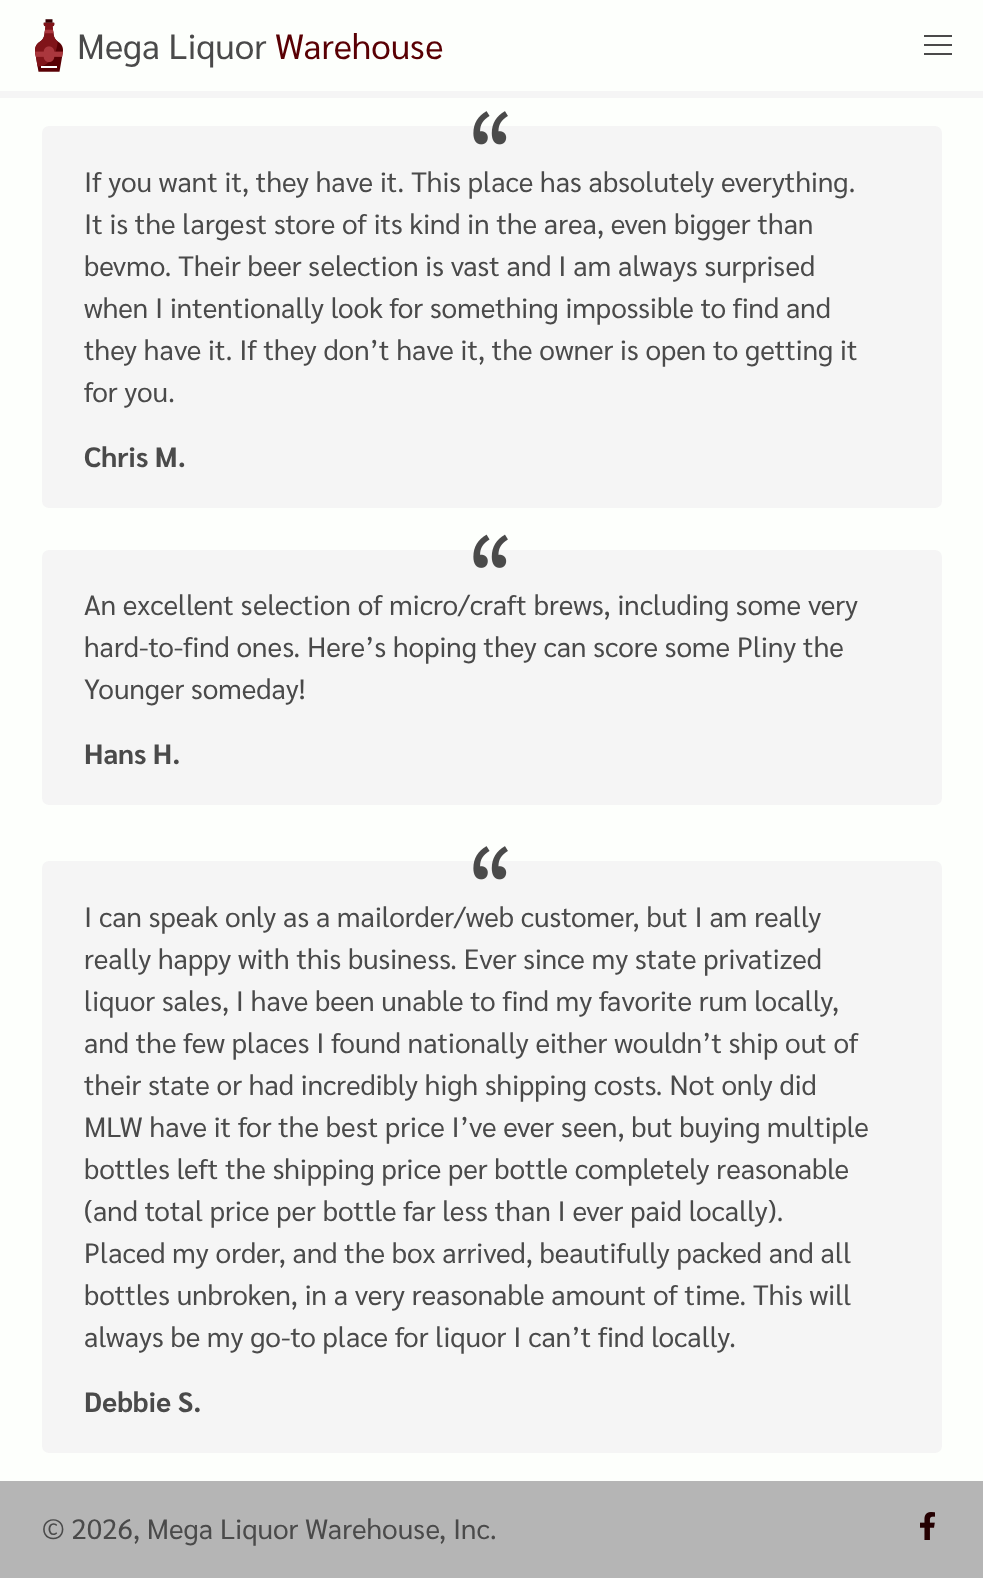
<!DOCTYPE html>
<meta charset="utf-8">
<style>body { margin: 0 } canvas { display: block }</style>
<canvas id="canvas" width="983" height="1578"></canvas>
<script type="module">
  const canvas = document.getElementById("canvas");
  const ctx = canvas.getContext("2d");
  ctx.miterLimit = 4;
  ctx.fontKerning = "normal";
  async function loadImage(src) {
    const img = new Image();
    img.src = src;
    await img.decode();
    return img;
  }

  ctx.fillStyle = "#fdfffc";
  ctx.fillRect(0, 0, 983, 1578);
  ctx.drawImage(await loadImage("img1.png"), 35, 19, 28, 53);
  ctx.font = "35px Sarabun";
  ctx.fillStyle = "#4a4a4a";
  ctx.fillText("Mega Liquor", 77, 59);
  ctx.fillStyle = "#590004";
  ctx.fillText("Warehouse", 275, 59);
  ctx.fillStyle = "#4a4a4a";
  ctx.fillRect(924, 35, 28, 2);
  ctx.fillRect(924, 44, 28, 2);
  ctx.fillRect(924, 53, 28, 2);
  ctx.fillStyle = "#f5f5f5";
  ctx.fillRect(0, 91, 983, 7);
  ctx.beginPath();
  ctx.roundRect(42, 126, 900, 382, 7);
  ctx.fill();
  ctx.drawImage(await loadImage("img2.png"), 473, 111, 35, 34);
  ctx.font = "28px Sarabun";
  ctx.fillStyle = "#4a4a4a";
  ctx.fillText("If you want it, they have it. This place has absolutely everything.", 84, 192);
  ctx.fillText("It is the largest store of its kind in the area, even bigger than", 84, 234);
  ctx.fillText("bevmo. Their beer selection is vast and I am always surprised", 84, 276);
  ctx.fillText("when I intentionally look for something impossible to find and", 84, 318);
  ctx.fillText("they have it. If they don’t have it, the owner is open to getting it", 84, 360);
  ctx.fillText("for you.", 84, 402);
  ctx.font = "bold 28px Sarabun";
  ctx.fillText("Chris M.", 84, 467);
  ctx.fillStyle = "#f5f5f5";
  ctx.beginPath();
  ctx.roundRect(42, 550, 900, 255, 7);
  ctx.fill();
  ctx.drawImage(await loadImage("img3.png"), 473, 534, 35, 34);
  ctx.font = "28px Sarabun";
  ctx.fillStyle = "#4a4a4a";
  ctx.fillText("An excellent selection of micro/craft brews, including some very", 84, 615);
  ctx.fillText("hard-to-find ones. Here’s hoping they can score some Pliny the", 84, 657);
  ctx.fillText("Younger someday!", 84, 699);
  ctx.font = "bold 28px Sarabun";
  ctx.fillText("Hans H.", 84, 764);
  ctx.fillStyle = "#f5f5f5";
  ctx.beginPath();
  ctx.roundRect(42, 861, 900, 592, 7);
  ctx.fill();
  ctx.drawImage(await loadImage("img2.png"), 473, 846, 35, 34);
  ctx.font = "28px Sarabun";
  ctx.fillStyle = "#4a4a4a";
  ctx.fillText("I can speak only as a mailorder/web customer, but I am really", 84, 927);
  ctx.fillText("really happy with this business. Ever since my state privatized", 84, 969);
  ctx.fillText("liquor sales, I have been unable to find my favorite rum locally,", 84, 1011);
  ctx.fillText("and the few places I found nationally either wouldn’t ship out of", 84, 1053);
  ctx.fillText("their state or had incredibly high shipping costs. Not only did", 84, 1095);
  ctx.fillText("MLW have it for the best price I’ve ever seen, but buying multiple", 84, 1137);
  ctx.fillText("bottles left the shipping price per bottle completely reasonable", 84, 1179);
  ctx.fillText("(and total price per bottle far less than I ever paid locally).", 84, 1221);
  ctx.fillText("Placed my order, and the box arrived, beautifully packed and all", 84, 1263);
  ctx.fillText("bottles unbroken, in a very reasonable amount of time. This will", 84, 1305);
  ctx.fillText("always be my go-to place for liquor I can’t find locally.", 84, 1347);
  ctx.font = "bold 28px Sarabun";
  ctx.fillText("Debbie S.", 84, 1412);
  ctx.fillStyle = "#b5b5b5";
  ctx.fillRect(0, 1481, 983, 97);
  ctx.font = "28px Sarabun";
  ctx.fillStyle = "#4a4a4a";
  ctx.fillText("© 2026, Mega Liquor Warehouse, Inc.", 42, 1539);
  ctx.drawImage(await loadImage("img4.png"), 920, 1512, 15, 28);
</script>
